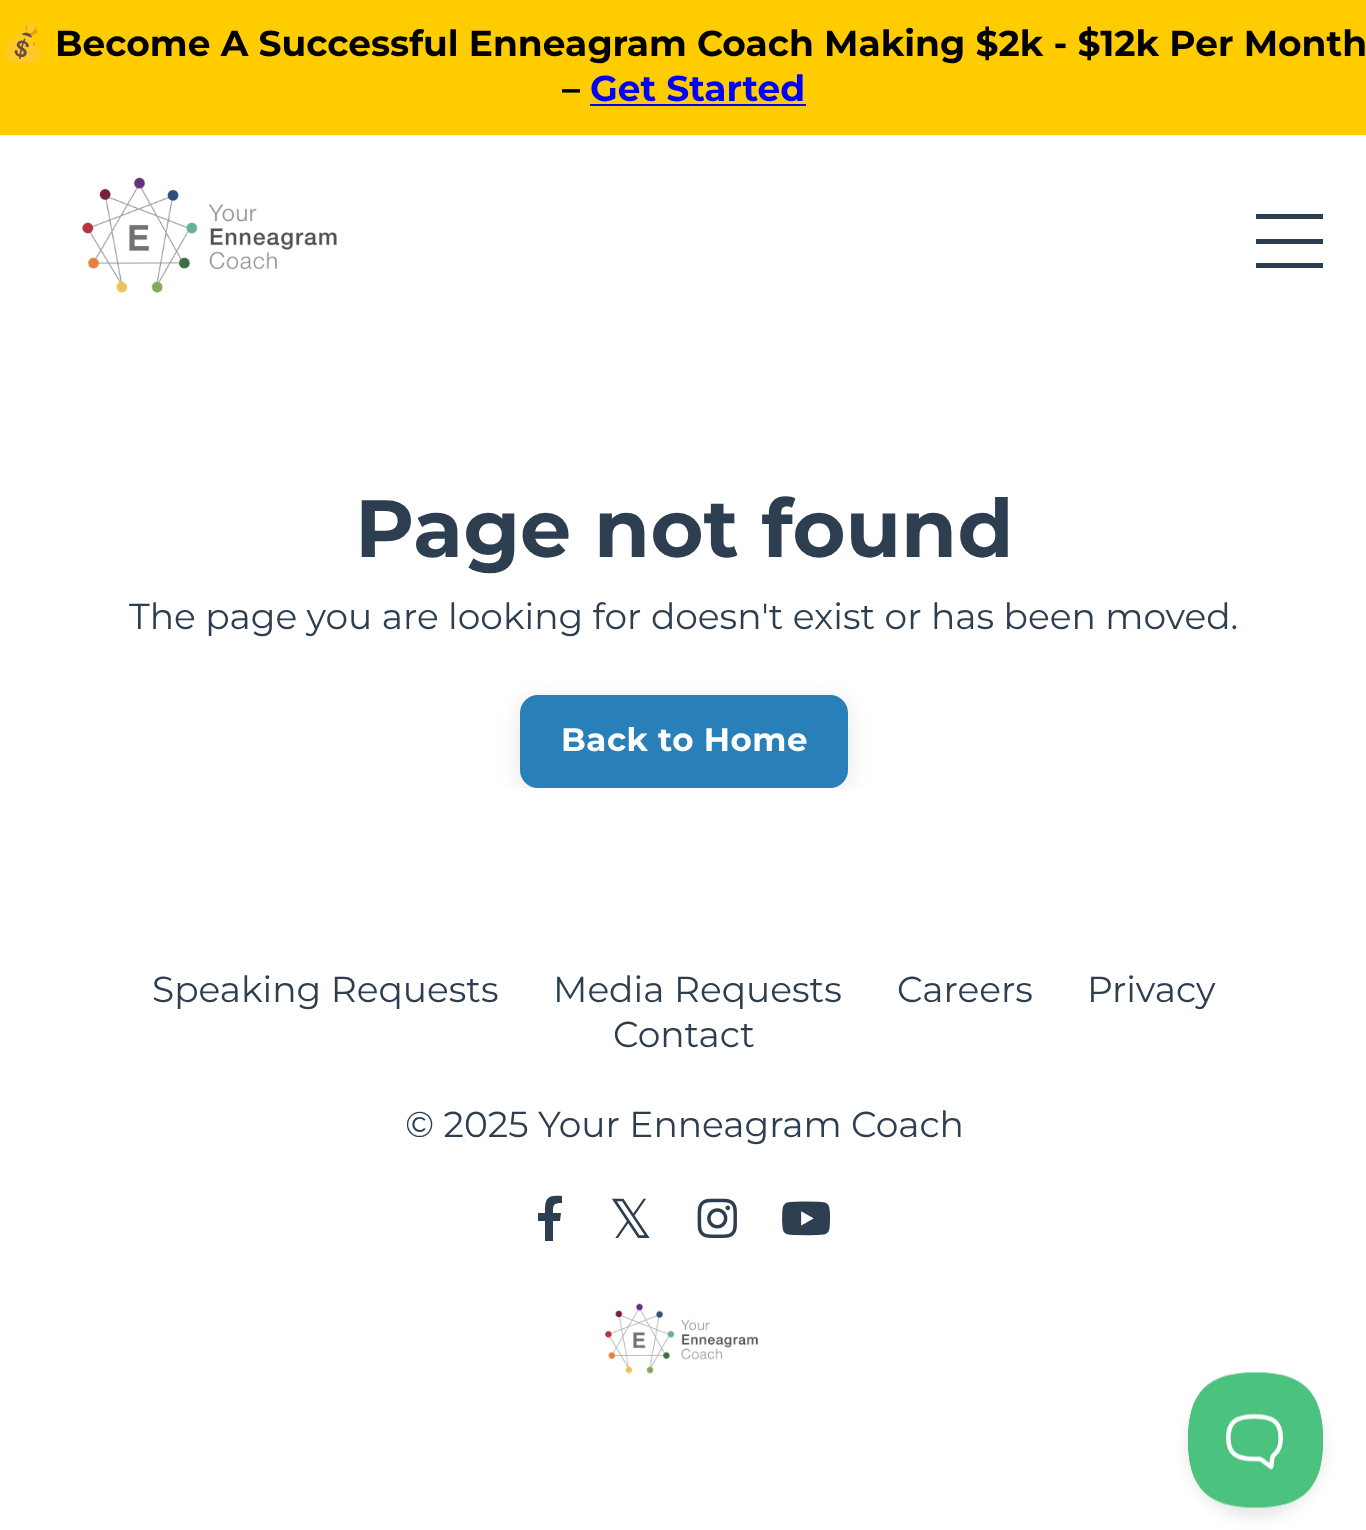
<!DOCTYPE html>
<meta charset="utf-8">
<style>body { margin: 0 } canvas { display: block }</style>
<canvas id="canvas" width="1366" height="1530"></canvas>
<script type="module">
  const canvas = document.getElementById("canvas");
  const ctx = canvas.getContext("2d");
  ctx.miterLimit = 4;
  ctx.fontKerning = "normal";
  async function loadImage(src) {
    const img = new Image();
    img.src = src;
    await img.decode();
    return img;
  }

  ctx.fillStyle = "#ffffff";
  ctx.fillRect(0, 0, 1366, 1530);
  ctx.fillStyle = "#ffcc00";
  ctx.fillRect(0, 0, 1366, 135);
  ctx.font = "bold 36px Noto Color Emoji";
  ctx.fillStyle = "#000000";
  ctx.fillText("💰", 0, 56);
  ctx.font = "bold 36px Montserrat";
  ctx.fillText("Become A Successful Enneagram Coach Making $2k - $12k Per Month", 55, 56);
  ctx.fillText("–", 562, 101);
  ctx.fillStyle = "#0000ff";
  ctx.fillText("Get Started", 590, 101);
  ctx.fillRect(590, 104, 216, 2);
  ctx.drawImage(await loadImage("img1.png"), 82, 177, 255, 116);
  ctx.fillStyle = "#2c3e50";
  ctx.fillRect(1256, 214, 67, 5);
  ctx.fillRect(1256, 239, 67, 5);
  ctx.fillRect(1256, 263, 67, 5);
  ctx.font = "bold 81px Montserrat";
  ctx.fillText("Page not found", 355, 557);
  ctx.font = "36px Montserrat";
  ctx.fillText("The page you are looking for doesn't exist or has been moved.", 129, 629);
  ctx.save();
  ctx.beginPath();
  ctx.roundRect(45, 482, 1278, 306, 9);
  ctx.clip();
  ctx.fillStyle = "rgba(0, 0, 0, 0.1)";
  ctx.filter = "blur(11px)";
  ctx.beginPath();
  ctx.roundRect(520, 700, 328, 92, 18);
  ctx.fill();
  ctx.filter = "none";
  ctx.restore();
  ctx.fillStyle = "#2980b9";
  ctx.beginPath();
  ctx.roundRect(522.5, 697.5, 323, 88, 15.5);
  ctx.fill();
  ctx.strokeStyle = "#2980b9";
  ctx.lineWidth = 5;
  ctx.stroke();
  ctx.letterSpacing = "0.5px";
  ctx.font = "bold 32.5px Montserrat";
  ctx.fillStyle = "#ffffff";
  ctx.fillText("Back to Home", 561, 751);
  ctx.letterSpacing = "0px";
  ctx.font = "36px Montserrat";
  ctx.fillStyle = "#2c3e50";
  ctx.fillText("Speaking Requests", 152, 1002);
  ctx.fillText("Media Requests", 553, 1002);
  ctx.fillText("Careers", 897, 1002);
  ctx.fillText("Privacy", 1087, 1002);
  ctx.fillText("Contact", 613, 1047);
  ctx.fillText("© 2025 Your Enneagram Coach", 405, 1137);
  ctx.beginPath();
  ctx.moveTo(560, 1221);
  ctx.lineTo(553, 1221);
  ctx.lineTo(553, 1241);
  ctx.lineTo(545, 1241);
  ctx.lineTo(545, 1221);
  ctx.lineTo(538, 1221);
  ctx.lineTo(538, 1213);
  ctx.lineTo(545, 1213);
  ctx.bezierCurveTo(545, 1198, 547, 1195, 562, 1196);
  ctx.lineTo(562, 1203);
  ctx.bezierCurveTo(553, 1203, 553, 1205, 553, 1213);
  ctx.lineTo(561, 1213);
  ctx.closePath();
  ctx.fill();
  ctx.font = "54px DejaVu Sans";
  ctx.fillText("𝕏", 609, 1238);
  ctx.drawImage(await loadImage("img2.png"), 697, 1198, 40, 41);
  ctx.drawImage(await loadImage("img3.png"), 782, 1201, 49, 35);
  ctx.drawImage(await loadImage("img4.png"), 605, 1303, 153, 71);
  ctx.fillStyle = "rgba(0, 0, 0, 0.1)";
  ctx.filter = "blur(8px)";
  ctx.beginPath();
  ctx.roundRect(1188, 1382, 135, 135, 67.5);
  ctx.fill();
  ctx.filter = "none";
  ctx.drawImage(await loadImage("img5.png"), 1188, 1372, 135, 136);
</script>
